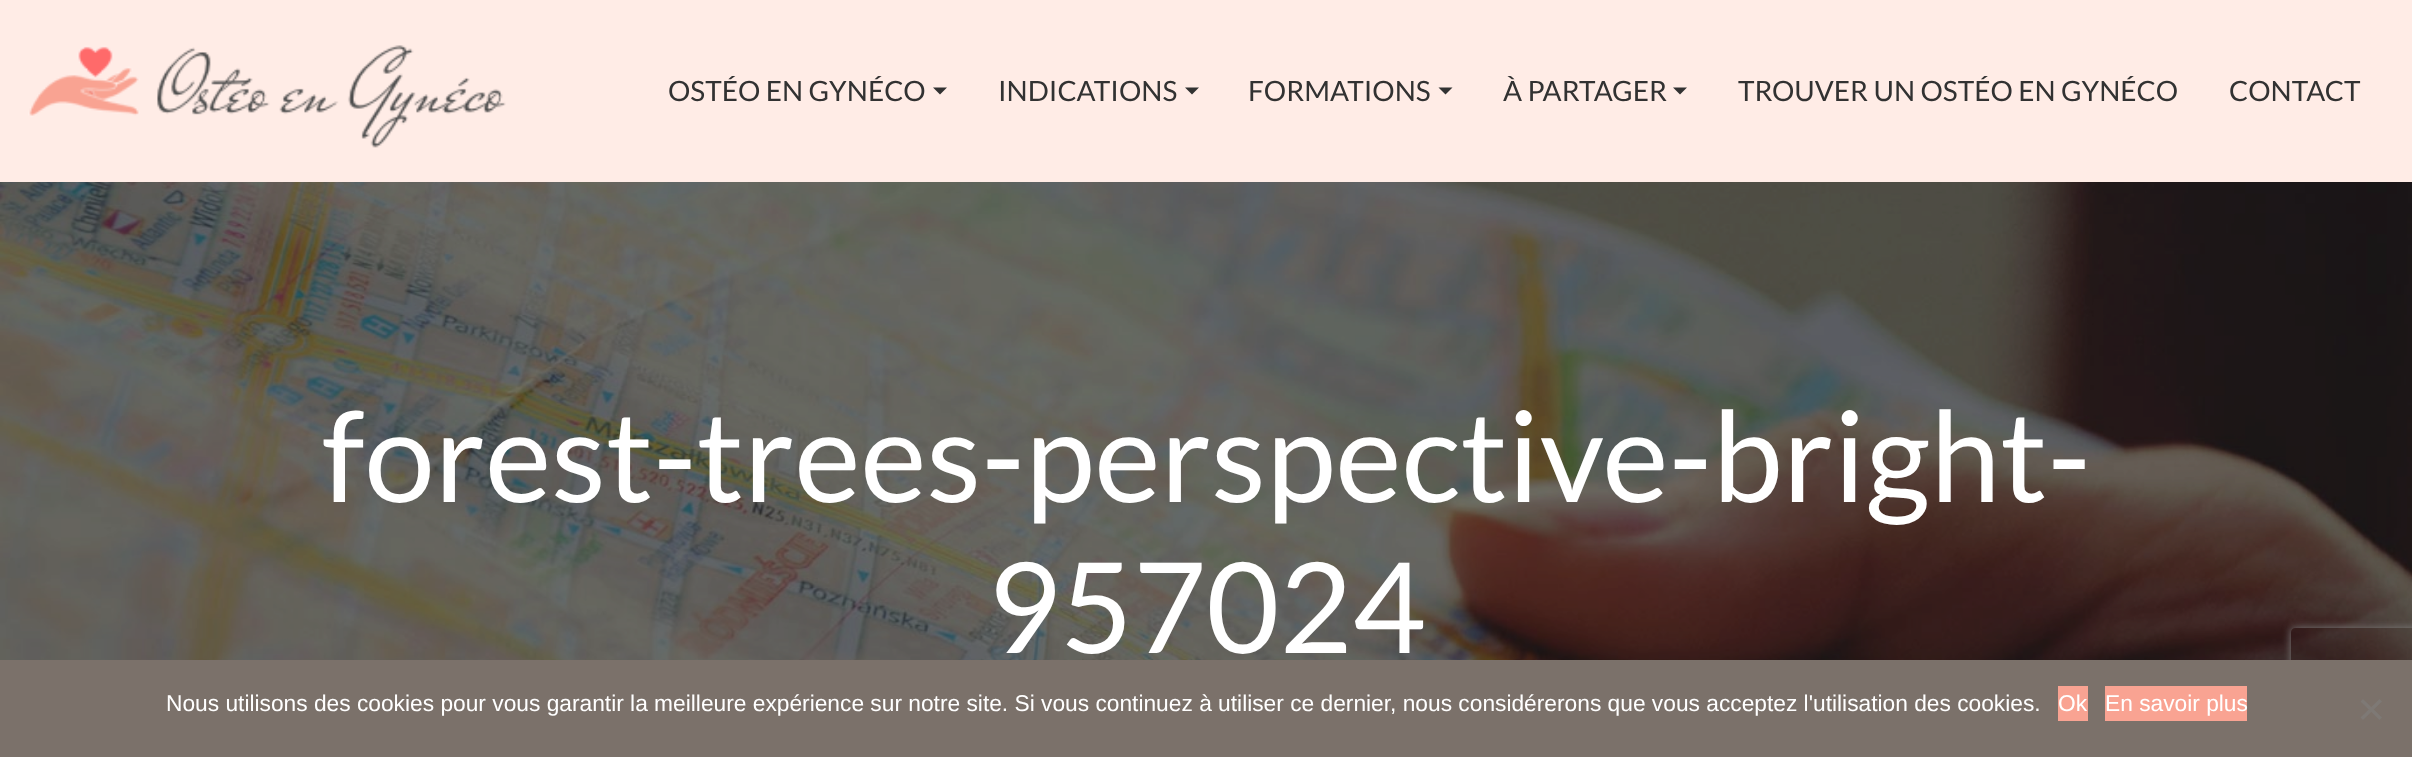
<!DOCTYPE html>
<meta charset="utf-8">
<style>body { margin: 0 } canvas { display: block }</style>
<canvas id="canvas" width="2412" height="757"></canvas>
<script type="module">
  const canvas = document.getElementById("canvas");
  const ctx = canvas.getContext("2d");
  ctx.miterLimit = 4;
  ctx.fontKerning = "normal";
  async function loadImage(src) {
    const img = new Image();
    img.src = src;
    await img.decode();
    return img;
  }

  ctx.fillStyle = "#ffece6";
  ctx.fillRect(0, 0, 2412, 757);
  ctx.drawImage(await loadImage("img1.png"), 28, 45, 478, 103);
  ctx.font = "28px Lato";
  ctx.fillStyle = "#323232";
  ctx.fillText("OSTÉO EN GYNÉCO", 668, 101);
  ctx.beginPath();
  ctx.moveTo(933, 87.5);
  ctx.lineTo(947, 87.5);
  ctx.lineTo(940, 94.5);
  ctx.closePath();
  ctx.fill();
  ctx.fillText("INDICATIONS", 998, 101);
  ctx.beginPath();
  ctx.moveTo(1185, 87.5);
  ctx.lineTo(1199, 87.5);
  ctx.lineTo(1192, 94.5);
  ctx.closePath();
  ctx.fill();
  ctx.fillText("FORMATIONS", 1248, 101);
  ctx.beginPath();
  ctx.moveTo(1438.5, 87.5);
  ctx.lineTo(1452.5, 87.5);
  ctx.lineTo(1445.5, 94.5);
  ctx.closePath();
  ctx.fill();
  ctx.fillText("À PARTAGER", 1503, 101);
  ctx.beginPath();
  ctx.moveTo(1673, 87.5);
  ctx.lineTo(1687, 87.5);
  ctx.lineTo(1680, 94.5);
  ctx.closePath();
  ctx.fill();
  ctx.fillText("TROUVER UN OSTÉO EN GYNÉCO", 1738, 101);
  ctx.fillText("CONTACT", 2229, 101);
  ctx.drawImage(await loadImage("img2.png"), 0, 182, 2412, 478);
  ctx.font = "126px Lato";
  ctx.fillStyle = "#ffffff";
  ctx.fillText("forest-trees-perspective-bright-", 322, 502);
  ctx.fillText("957024", 987, 653);
  ctx.save();
  ctx.beginPath();
  ctx.moveTo(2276, 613);
  ctx.lineTo(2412, 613);
  ctx.lineTo(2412, 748);
  ctx.lineTo(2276, 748);
  ctx.closePath();
  ctx.moveTo(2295, 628);
  ctx.lineTo(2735, 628);
  ctx.bezierCurveTo(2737, 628, 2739, 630, 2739, 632);
  ctx.lineTo(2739, 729);
  ctx.bezierCurveTo(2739, 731, 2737, 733, 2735, 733);
  ctx.lineTo(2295, 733);
  ctx.bezierCurveTo(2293, 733, 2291, 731, 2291, 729);
  ctx.lineTo(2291, 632);
  ctx.bezierCurveTo(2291, 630, 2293, 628, 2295, 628);
  ctx.closePath();
  ctx.clip("evenodd");
  ctx.fillStyle = "#808080";
  ctx.filter = "blur(4.5px)";
  ctx.beginPath();
  ctx.roundRect(2291, 628, 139, 105, 4);
  ctx.fill();
  ctx.filter = "none";
  ctx.restore();
  ctx.fillStyle = "#7b716a";
  ctx.fillRect(0, 660, 2412, 97);
  ctx.font = "22.75px Liberation Sans";
  ctx.fillStyle = "#ffffff";
  ctx.fillText("Nous utilisons des cookies pour vous garantir la meilleure expérience sur notre site. Si vous continuez à utiliser ce dernier, nous considérerons que vous acceptez l'utilisation des cookies.", 166, 711);
  ctx.fillStyle = "#f9a392";
  ctx.fillRect(2058, 686, 30, 35);
  ctx.fillStyle = "#ffffff";
  ctx.fillText("Ok", 2058, 711);
  ctx.fillStyle = "#f9a392";
  ctx.fillRect(2105, 686, 142, 35);
  ctx.fillStyle = "#ffffff";
  ctx.fillText("En savoir plus", 2105, 711);
  ctx.fillStyle = "#7e7975";
  ctx.beginPath();
  ctx.moveTo(2379.5, 699);
  ctx.lineTo(2382, 701.5);
  ctx.lineTo(2363, 720);
  ctx.lineTo(2360.5, 717.5);
  ctx.closePath();
  ctx.fill();
  ctx.beginPath();
  ctx.moveTo(2360.5, 701.5);
  ctx.lineTo(2363, 699);
  ctx.lineTo(2382, 717.5);
  ctx.lineTo(2379.5, 720);
  ctx.closePath();
  ctx.fill();
</script>
